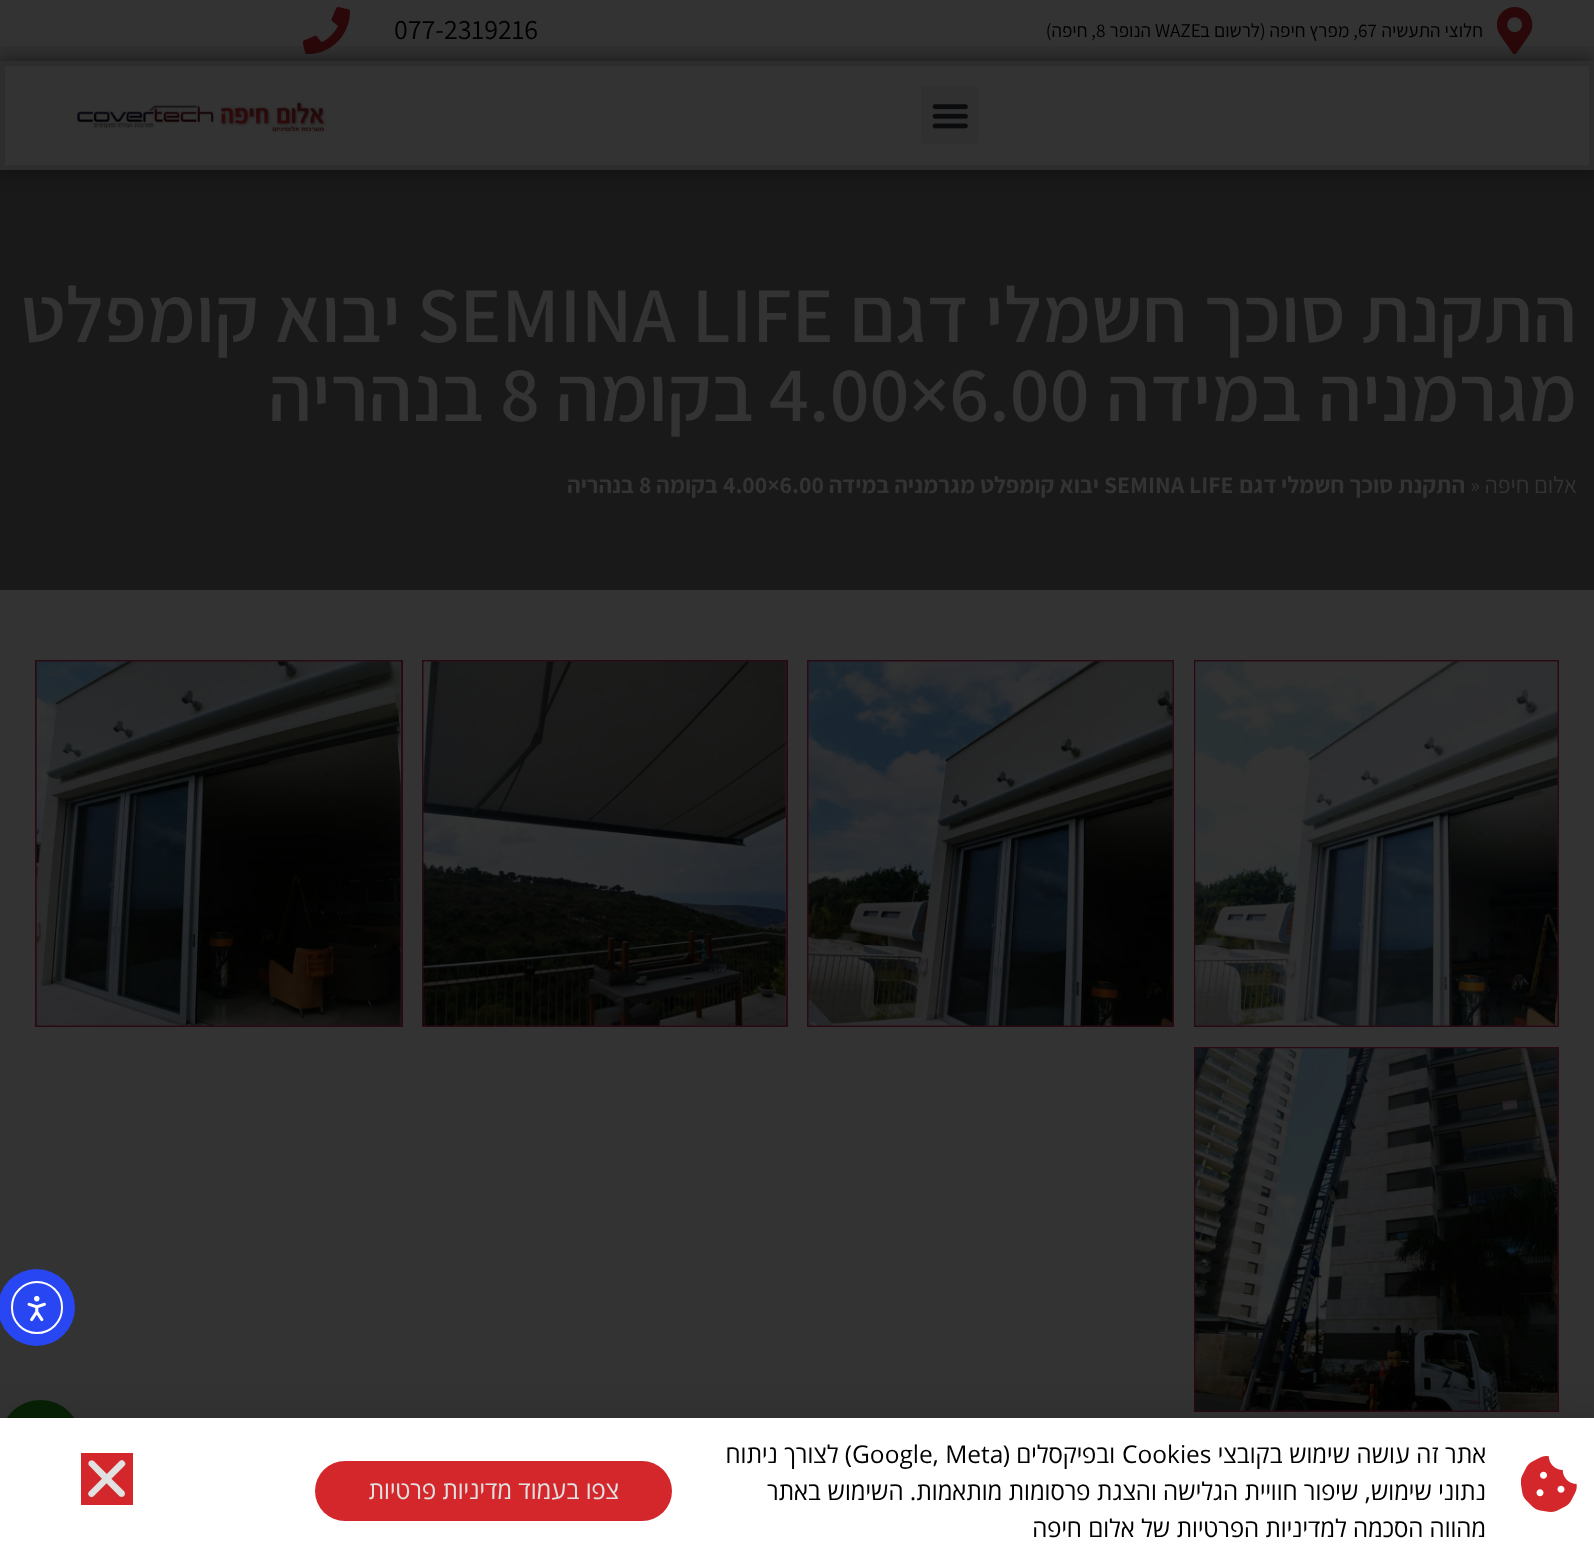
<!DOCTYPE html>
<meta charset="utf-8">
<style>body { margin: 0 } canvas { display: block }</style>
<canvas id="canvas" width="1594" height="1562"></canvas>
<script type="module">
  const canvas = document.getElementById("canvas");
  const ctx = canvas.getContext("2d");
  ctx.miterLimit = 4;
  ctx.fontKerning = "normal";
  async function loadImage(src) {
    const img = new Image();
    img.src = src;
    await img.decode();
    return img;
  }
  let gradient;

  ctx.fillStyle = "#333333";
  ctx.fillRect(0, 0, 1594, 1562);
  gradient = ctx.createLinearGradient(797, 61, 797, 0);
  gradient.addColorStop(0, "#303030");
  gradient.addColorStop(1, "#323232");
  ctx.fillStyle = gradient;
  ctx.fillRect(0, 46, 1594, 15);
  ctx.drawImage(await loadImage("img1.png"), 1496, 7, 37, 47);
  ctx.direction = "rtl";
  ctx.font = "19.25px Assistant";
  ctx.fillStyle = "#000000";
  ctx.fillText("חלוצי התעשיה", 1483, 37);
  ctx.direction = "ltr";
  ctx.fillText("67", 1358, 37);
  ctx.direction = "rtl";
  ctx.fillText(", מפרץ חיפה (לרשום ב", 1358, 37);
  ctx.direction = "ltr";
  ctx.fillText("WAZE", 1155, 37);
  ctx.direction = "rtl";
  ctx.fillText("הנופר", 1151, 37);
  ctx.direction = "ltr";
  ctx.fillText("8", 1096, 37);
  ctx.direction = "rtl";
  ctx.fillText(", חיפה)", 1096, 37);
  ctx.direction = "ltr";
  ctx.font = "28px Assistant";
  ctx.fillText("077-2319216", 394, 39);
  ctx.drawImage(await loadImage("img2.png"), 303, 7, 47, 47);
  ctx.fillStyle = "#191919";
  ctx.fillRect(0, 170, 1594, 420);
  ctx.fillStyle = "rgba(0, 0, 0, 0.5)";
  ctx.filter = "blur(9px)";
  ctx.beginPath();
  ctx.rect(0, 61, 1594, 109);
  ctx.fill();
  ctx.filter = "none";
  ctx.fillStyle = "#333333";
  ctx.beginPath();
  ctx.rect(2.5, 63.5, 1589, 104);
  ctx.fill();
  ctx.strokeStyle = "#2d2d2d";
  ctx.lineWidth = 5;
  ctx.stroke();
  ctx.fillStyle = "#303030";
  ctx.beginPath();
  ctx.roundRect(921, 86, 57, 58, 5);
  ctx.fill();
  ctx.drawImage(await loadImage("img3.png"), 932, 104, 36, 25);
  ctx.drawImage(await loadImage("img4.png"), 73, 98, 254, 37);
  ctx.direction = "rtl";
  ctx.font = "600 78.75px Assistant";
  ctx.fillStyle = "#333333";
  ctx.fillText("התקנת סוכך חשמלי דגם", 1577, 342);
  ctx.direction = "ltr";
  ctx.fillText("SEMINA LIFE", 417, 342);
  ctx.direction = "rtl";
  ctx.fillText("יבוא קומפלט", 401, 342);
  ctx.fillText("מגרמניה במידה", 1577, 421);
  ctx.direction = "ltr";
  ctx.fillText("4.00×6.00", 769, 421);
  ctx.direction = "rtl";
  ctx.fillText("בקומה", 754, 421);
  ctx.direction = "ltr";
  ctx.fillText("8", 500, 421);
  ctx.direction = "rtl";
  ctx.fillText("בנהריה", 484, 421);
  ctx.font = "23.75px Assistant";
  ctx.fillText("אלום חיפה", 1577, 493);
  ctx.direction = "ltr";
  ctx.fillText("»", 1470, 493);
  ctx.direction = "rtl";
  ctx.font = "bold 23.75px Assistant";
  ctx.fillText("התקנת סוכך חשמלי דגם", 1465, 493);
  ctx.direction = "ltr";
  ctx.fillText("SEMINA LIFE", 1104, 493);
  ctx.direction = "rtl";
  ctx.fillText("יבוא קומפלט מגרמניה במידה", 1099, 493);
  ctx.direction = "ltr";
  ctx.fillText("4.00×6.00", 723, 493);
  ctx.direction = "rtl";
  ctx.fillText("בקומה", 718, 493);
  ctx.direction = "ltr";
  ctx.fillText("8", 639, 493);
  ctx.direction = "rtl";
  ctx.fillText("בנהריה", 634, 493);
  ctx.strokeStyle = "#290a14";
  ctx.lineWidth = 2;
  ctx.strokeRect(1195, 661, 363, 365);
  ctx.drawImage(await loadImage("img5.png"), 1195, 661, 363, 365);
  ctx.strokeRect(808, 661, 365, 365);
  ctx.drawImage(await loadImage("img6.png"), 808, 661, 365, 365);
  ctx.strokeRect(423, 661, 364, 365);
  ctx.drawImage(await loadImage("img7.png"), 423, 661, 363, 365);
  ctx.strokeRect(36, 661, 366, 365);
  ctx.drawImage(await loadImage("img8.png"), 36, 661, 365, 365);
  ctx.strokeRect(1195, 1048, 363, 363);
  ctx.drawImage(await loadImage("img9.png"), 1195, 1048, 363, 363);
  ctx.fillStyle = "#2847f3";
  ctx.beginPath();
  ctx.arc(36.5, 1307.5, 38.5, 0, Math.PI * 2);
  ctx.fill();
  ctx.beginPath();
  ctx.roundRect(12, 1282, 50, 51, 25);
  ctx.strokeStyle = "#ffffff";
  ctx.stroke();
  ctx.drawImage(await loadImage("img10.png"), 27, 1295, 19, 27);
  ctx.fillStyle = "#082105";
  ctx.beginPath();
  ctx.arc(40.5, 1440.5, 40.5, 0, Math.PI * 2);
  ctx.fill();
  ctx.fillStyle = "rgba(0, 0, 0, 0.2)";
  ctx.filter = "blur(20px)";
  ctx.beginPath();
  ctx.rect(-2, 1426, 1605, 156);
  ctx.fill();
  ctx.filter = "none";
  ctx.fillStyle = "#ffffff";
  ctx.fillRect(0, 1418, 1594, 144);
  ctx.drawImage(await loadImage("img11.png"), 1521, 1456, 56, 56);
  ctx.font = "24.5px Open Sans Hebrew";
  ctx.fillStyle = "#000000";
  ctx.fillText("אתר זה עושה שימוש בקובצי", 1486, 1463);
  ctx.direction = "ltr";
  ctx.fillText("Cookies", 1122, 1463);
  ctx.direction = "rtl";
  ctx.fillText("ובפיקסלים (", 1115, 1463);
  ctx.direction = "ltr";
  ctx.fillText("Google, Meta", 852, 1463);
  ctx.direction = "rtl";
  ctx.fillText(") לצורך ניתוח", 852, 1463);
  ctx.fillText("נתוני שימוש, שיפור חוויית הגלישה והצגת פרסומות מותאמות. השימוש באתר", 1486, 1500);
  ctx.fillText("מהווה הסכמה למדיניות הפרטיות של אלום חיפה", 1486, 1537);
  ctx.fillStyle = "#d4272c";
  ctx.beginPath();
  ctx.roundRect(315, 1461, 357, 60, 30);
  ctx.fill();
  ctx.fillStyle = "#e1e1e1";
  ctx.fillText("צפו בעמוד מדיניות פרטיות", 619, 1499);
  ctx.fillStyle = "#d4272c";
  ctx.fillRect(81, 1453, 52, 52);
  ctx.drawImage(await loadImage("img12.png"), 88, 1460, 38, 38);
</script>
